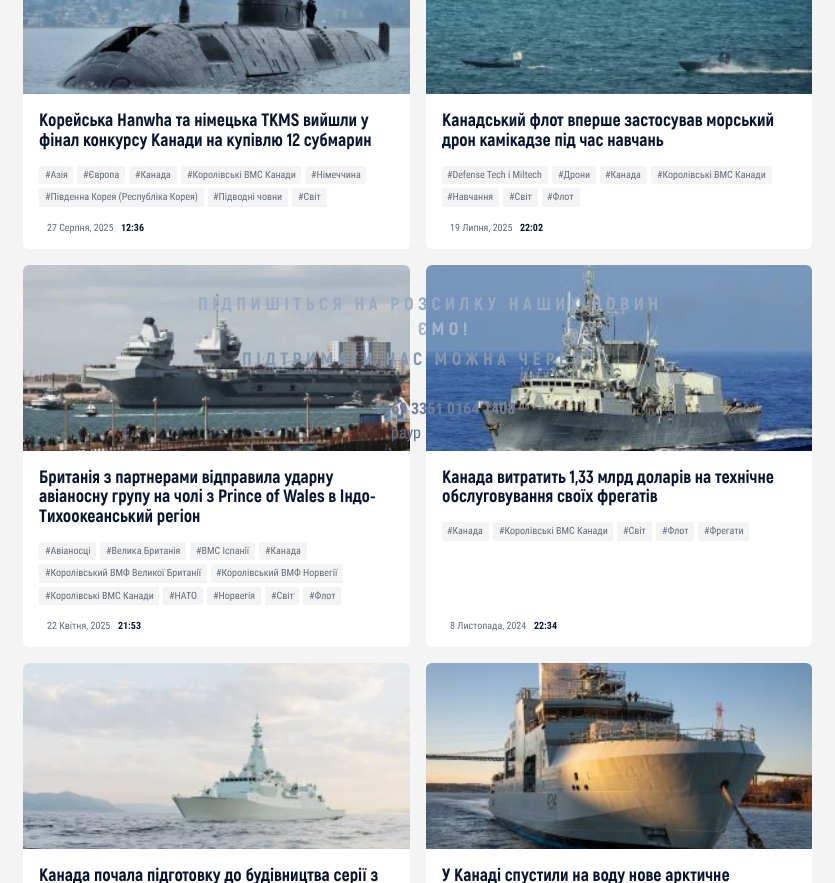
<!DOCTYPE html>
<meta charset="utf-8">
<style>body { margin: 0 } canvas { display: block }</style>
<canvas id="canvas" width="835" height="883"></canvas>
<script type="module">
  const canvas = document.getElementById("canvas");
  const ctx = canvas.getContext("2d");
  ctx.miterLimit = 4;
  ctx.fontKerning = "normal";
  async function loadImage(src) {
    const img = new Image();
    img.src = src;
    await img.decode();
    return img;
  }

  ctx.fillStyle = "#f4f4f4";
  ctx.fillRect(0, 0, 835, 883);
  ctx.fillStyle = "#ffffff";
  ctx.beginPath();
  ctx.roundRect(23, -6, 387, 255, 6);
  ctx.fill();
  ctx.drawImage(await loadImage("img1.png"), 23, 0, 387, 94);
  ctx.font = "800 18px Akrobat";
  ctx.fillStyle = "#08152e";
  ctx.fillText("Корейська Hanwha та німецька TKMS вийшли у", 39, 126);
  ctx.fillText("фінал конкурсу Канади на купівлю 12 субмарин", 39, 146);
  ctx.fillStyle = "#f4f4f4";
  ctx.beginPath();
  ctx.roundRect(39, 166, 34, 18, 2);
  ctx.fill();
  ctx.font = "10px Roboto Condensed";
  ctx.fillStyle = "#666e7d";
  ctx.fillText("#Азія", 45, 178);
  ctx.fillStyle = "#f4f4f4";
  ctx.beginPath();
  ctx.roundRect(77, 166, 48, 18, 2);
  ctx.fill();
  ctx.fillStyle = "#666e7d";
  ctx.fillText("#Європа", 83, 178);
  ctx.fillStyle = "#f4f4f4";
  ctx.beginPath();
  ctx.roundRect(129, 166, 48, 18, 2);
  ctx.fill();
  ctx.fillStyle = "#666e7d";
  ctx.fillText("#Канада", 135, 178);
  ctx.fillStyle = "#f4f4f4";
  ctx.beginPath();
  ctx.roundRect(181, 166, 120, 18, 2);
  ctx.fill();
  ctx.fillStyle = "#666e7d";
  ctx.fillText("#Королівські ВМС Канади", 187, 178);
  ctx.fillStyle = "#f4f4f4";
  ctx.beginPath();
  ctx.roundRect(305, 166, 61, 18, 2);
  ctx.fill();
  ctx.fillStyle = "#666e7d";
  ctx.fillText("#Німеччина", 311, 178);
  ctx.fillStyle = "#f4f4f4";
  ctx.beginPath();
  ctx.roundRect(39, 188, 165, 19, 2);
  ctx.fill();
  ctx.fillStyle = "#666e7d";
  ctx.fillText("#Південна Корея (Республіка Корея)", 45, 200);
  ctx.fillStyle = "#f4f4f4";
  ctx.beginPath();
  ctx.roundRect(208, 188, 80, 19, 2);
  ctx.fill();
  ctx.fillStyle = "#666e7d";
  ctx.fillText("#Підводні човни", 213, 200);
  ctx.fillStyle = "#f4f4f4";
  ctx.beginPath();
  ctx.roundRect(292, 188, 35, 19, 2);
  ctx.fill();
  ctx.fillStyle = "#666e7d";
  ctx.fillText("#Світ", 298, 200);
  ctx.fillText("27 Серпня, 2025", 47, 231);
  ctx.font = "bold 10px Roboto Condensed";
  ctx.fillStyle = "#08152e";
  ctx.fillText("12:36", 121, 231);
  ctx.fillStyle = "#ffffff";
  ctx.beginPath();
  ctx.roundRect(426, -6, 386, 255, 6);
  ctx.fill();
  ctx.drawImage(await loadImage("img2.png"), 426, 0, 386, 94);
  ctx.font = "800 18px Akrobat";
  ctx.fillStyle = "#08152e";
  ctx.fillText("Канадський флот вперше застосував морський", 442, 126);
  ctx.fillText("дрон камікадзе під час навчань", 442, 146);
  ctx.fillStyle = "#f4f4f4";
  ctx.beginPath();
  ctx.roundRect(442, 166, 106, 18, 2);
  ctx.fill();
  ctx.font = "10px Roboto Condensed";
  ctx.fillStyle = "#666e7d";
  ctx.fillText("#Defense Tech і Miltech", 447, 178);
  ctx.fillStyle = "#f4f4f4";
  ctx.beginPath();
  ctx.roundRect(552, 166, 44, 18, 2);
  ctx.fill();
  ctx.fillStyle = "#666e7d";
  ctx.fillText("#Дрони", 558, 178);
  ctx.fillStyle = "#f4f4f4";
  ctx.beginPath();
  ctx.roundRect(600, 166, 47, 18, 2);
  ctx.fill();
  ctx.fillStyle = "#666e7d";
  ctx.fillText("#Канада", 605, 178);
  ctx.fillStyle = "#f4f4f4";
  ctx.beginPath();
  ctx.roundRect(651, 166, 121, 18, 2);
  ctx.fill();
  ctx.fillStyle = "#666e7d";
  ctx.fillText("#Королівські ВМС Канади", 657, 178);
  ctx.fillStyle = "#f4f4f4";
  ctx.beginPath();
  ctx.roundRect(442, 188, 57, 19, 2);
  ctx.fill();
  ctx.fillStyle = "#666e7d";
  ctx.fillText("#Навчання", 447, 200);
  ctx.fillStyle = "#f4f4f4";
  ctx.beginPath();
  ctx.roundRect(503, 188, 35, 19, 2);
  ctx.fill();
  ctx.fillStyle = "#666e7d";
  ctx.fillText("#Світ", 509, 200);
  ctx.fillStyle = "#f4f4f4";
  ctx.beginPath();
  ctx.roundRect(542, 188, 38, 19, 2);
  ctx.fill();
  ctx.fillStyle = "#666e7d";
  ctx.fillText("#Флот", 547, 200);
  ctx.fillText("19 Липня, 2025", 450, 231);
  ctx.font = "bold 10px Roboto Condensed";
  ctx.fillStyle = "#08152e";
  ctx.fillText("22:02", 520, 231);
  ctx.fillStyle = "#ffffff";
  ctx.beginPath();
  ctx.roundRect(23, 265, 387, 382, 6);
  ctx.fill();
  ctx.drawImage(await loadImage("img3.png"), 23, 265, 387, 186);
  ctx.font = "800 18px Akrobat";
  ctx.fillStyle = "#08152e";
  ctx.fillText("Британія з партнерами відправила ударну", 39, 483);
  ctx.fillText("авіаносну групу на чолі з Prince of Wales в Індо-", 39, 502);
  ctx.fillText("Тихоокеанський регіон", 39, 522);
  ctx.fillStyle = "#f4f4f4";
  ctx.beginPath();
  ctx.roundRect(39, 542, 57, 18, 2);
  ctx.fill();
  ctx.font = "10px Roboto Condensed";
  ctx.fillStyle = "#666e7d";
  ctx.fillText("#Авіаносці", 45, 554);
  ctx.fillStyle = "#f4f4f4";
  ctx.beginPath();
  ctx.roundRect(100, 542, 86, 18, 2);
  ctx.fill();
  ctx.fillStyle = "#666e7d";
  ctx.fillText("#Велика Британія", 106, 554);
  ctx.fillStyle = "#f4f4f4";
  ctx.beginPath();
  ctx.roundRect(190, 542, 65, 18, 2);
  ctx.fill();
  ctx.fillStyle = "#666e7d";
  ctx.fillText("#ВМС Іспанії", 196, 554);
  ctx.fillStyle = "#f4f4f4";
  ctx.beginPath();
  ctx.roundRect(259, 542, 48, 18, 2);
  ctx.fill();
  ctx.fillStyle = "#666e7d";
  ctx.fillText("#Канада", 265, 554);
  ctx.fillStyle = "#f4f4f4";
  ctx.beginPath();
  ctx.roundRect(39, 564, 168, 19, 2);
  ctx.fill();
  ctx.fillStyle = "#666e7d";
  ctx.fillText("#Королівський ВМФ Великої Британії", 45, 576);
  ctx.fillStyle = "#f4f4f4";
  ctx.beginPath();
  ctx.roundRect(211, 564, 132, 19, 2);
  ctx.fill();
  ctx.fillStyle = "#666e7d";
  ctx.fillText("#Королівський ВМФ Норвегії", 216, 576);
  ctx.fillStyle = "#f4f4f4";
  ctx.beginPath();
  ctx.roundRect(39, 587, 120, 18, 2);
  ctx.fill();
  ctx.fillStyle = "#666e7d";
  ctx.fillText("#Королівські ВМС Канади", 45, 599);
  ctx.fillStyle = "#f4f4f4";
  ctx.beginPath();
  ctx.roundRect(163, 587, 40, 18, 2);
  ctx.fill();
  ctx.fillStyle = "#666e7d";
  ctx.fillText("#НАТО", 169, 599);
  ctx.fillStyle = "#f4f4f4";
  ctx.beginPath();
  ctx.roundRect(207, 587, 54, 18, 2);
  ctx.fill();
  ctx.fillStyle = "#666e7d";
  ctx.fillText("#Норвегія", 213, 599);
  ctx.fillStyle = "#f4f4f4";
  ctx.beginPath();
  ctx.roundRect(265, 587, 34, 18, 2);
  ctx.fill();
  ctx.fillStyle = "#666e7d";
  ctx.fillText("#Світ", 271, 599);
  ctx.fillStyle = "#f4f4f4";
  ctx.beginPath();
  ctx.roundRect(303, 587, 38, 18, 2);
  ctx.fill();
  ctx.fillStyle = "#666e7d";
  ctx.fillText("#Флот", 309, 599);
  ctx.fillText("22 Квітня, 2025", 47, 629);
  ctx.font = "bold 10px Roboto Condensed";
  ctx.fillStyle = "#08152e";
  ctx.fillText("21:53", 118, 629);
  ctx.fillStyle = "#ffffff";
  ctx.beginPath();
  ctx.roundRect(426, 265, 386, 382, 6);
  ctx.fill();
  ctx.drawImage(await loadImage("img4.png"), 426, 265, 386, 186);
  ctx.font = "800 18px Akrobat";
  ctx.fillStyle = "#08152e";
  ctx.fillText("Канада витратить 1,33 млрд доларів на технічне", 442, 483);
  ctx.fillText("обслуговування своїх фрегатів", 442, 502);
  ctx.fillStyle = "#f4f4f4";
  ctx.beginPath();
  ctx.roundRect(442, 522, 47, 19, 2);
  ctx.fill();
  ctx.font = "10px Roboto Condensed";
  ctx.fillStyle = "#666e7d";
  ctx.fillText("#Канада", 447, 534);
  ctx.fillStyle = "#f4f4f4";
  ctx.beginPath();
  ctx.roundRect(493, 522, 120, 19, 2);
  ctx.fill();
  ctx.fillStyle = "#666e7d";
  ctx.fillText("#Королівські ВМС Канади", 499, 534);
  ctx.fillStyle = "#f4f4f4";
  ctx.beginPath();
  ctx.roundRect(617, 522, 35, 19, 2);
  ctx.fill();
  ctx.fillStyle = "#666e7d";
  ctx.fillText("#Світ", 623, 534);
  ctx.fillStyle = "#f4f4f4";
  ctx.beginPath();
  ctx.roundRect(656, 522, 38, 19, 2);
  ctx.fill();
  ctx.fillStyle = "#666e7d";
  ctx.fillText("#Флот", 662, 534);
  ctx.fillStyle = "#f4f4f4";
  ctx.beginPath();
  ctx.roundRect(698, 522, 51, 19, 2);
  ctx.fill();
  ctx.fillStyle = "#666e7d";
  ctx.fillText("#Фрегати", 704, 534);
  ctx.fillText("8 Листопада, 2024", 450, 629);
  ctx.font = "bold 10px Roboto Condensed";
  ctx.fillStyle = "#08152e";
  ctx.fillText("22:34", 534, 629);
  ctx.fillStyle = "#ffffff";
  ctx.beginPath();
  ctx.roundRect(23, 663, 387, 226, 6);
  ctx.fill();
  ctx.drawImage(await loadImage("img5.png"), 23, 663, 387, 186);
  ctx.font = "800 18px Akrobat";
  ctx.fillStyle = "#08152e";
  ctx.fillText("Канада почала підготовку до будівництва серії з", 39, 881);
  ctx.fillStyle = "#ffffff";
  ctx.beginPath();
  ctx.roundRect(426, 663, 386, 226, 6);
  ctx.fill();
  ctx.drawImage(await loadImage("img6.png"), 426, 663, 386, 186);
  ctx.fillStyle = "#08152e";
  ctx.fillText("У Канаді спустили на воду нове арктичне", 442, 881);
  ctx.letterSpacing = "4.5px";
  ctx.fillStyle = "#99abc0";
  ctx.fillText("ПІДПИШІТЬСЯ НА РОЗСИЛКУ НАШИХ НОВИН", 198, 310);
  ctx.fillStyle = "#8497ad";
  ctx.fillText("ПІДТРИМАТИ НАС МОЖНА ЧЕРЕЗ:", 242, 365);
  ctx.letterSpacing = "0px";
  ctx.font = "14px Roboto Condensed";
  ctx.fillStyle = "#939ca7";
  ctx.fillText("'", 262, 368);
  ctx.letterSpacing = "4.5px";
  ctx.font = "800 18px Akrobat";
  ctx.fillStyle = "#a7b7c8";
  ctx.fillText("ЄМО!", 418, 335);
  ctx.letterSpacing = "0px";
  ctx.font = "bold 16px Roboto Condensed";
  ctx.fillStyle = "#708098";
  ctx.fillText("5169 3351 0164 7408", 375, 414);
  ctx.font = "16px Roboto Condensed";
  ctx.fillStyle = "#5f6e8c";
  ctx.fillText("payp", 391, 438);
  ctx.fillText(".", 464, 438);
</script>
